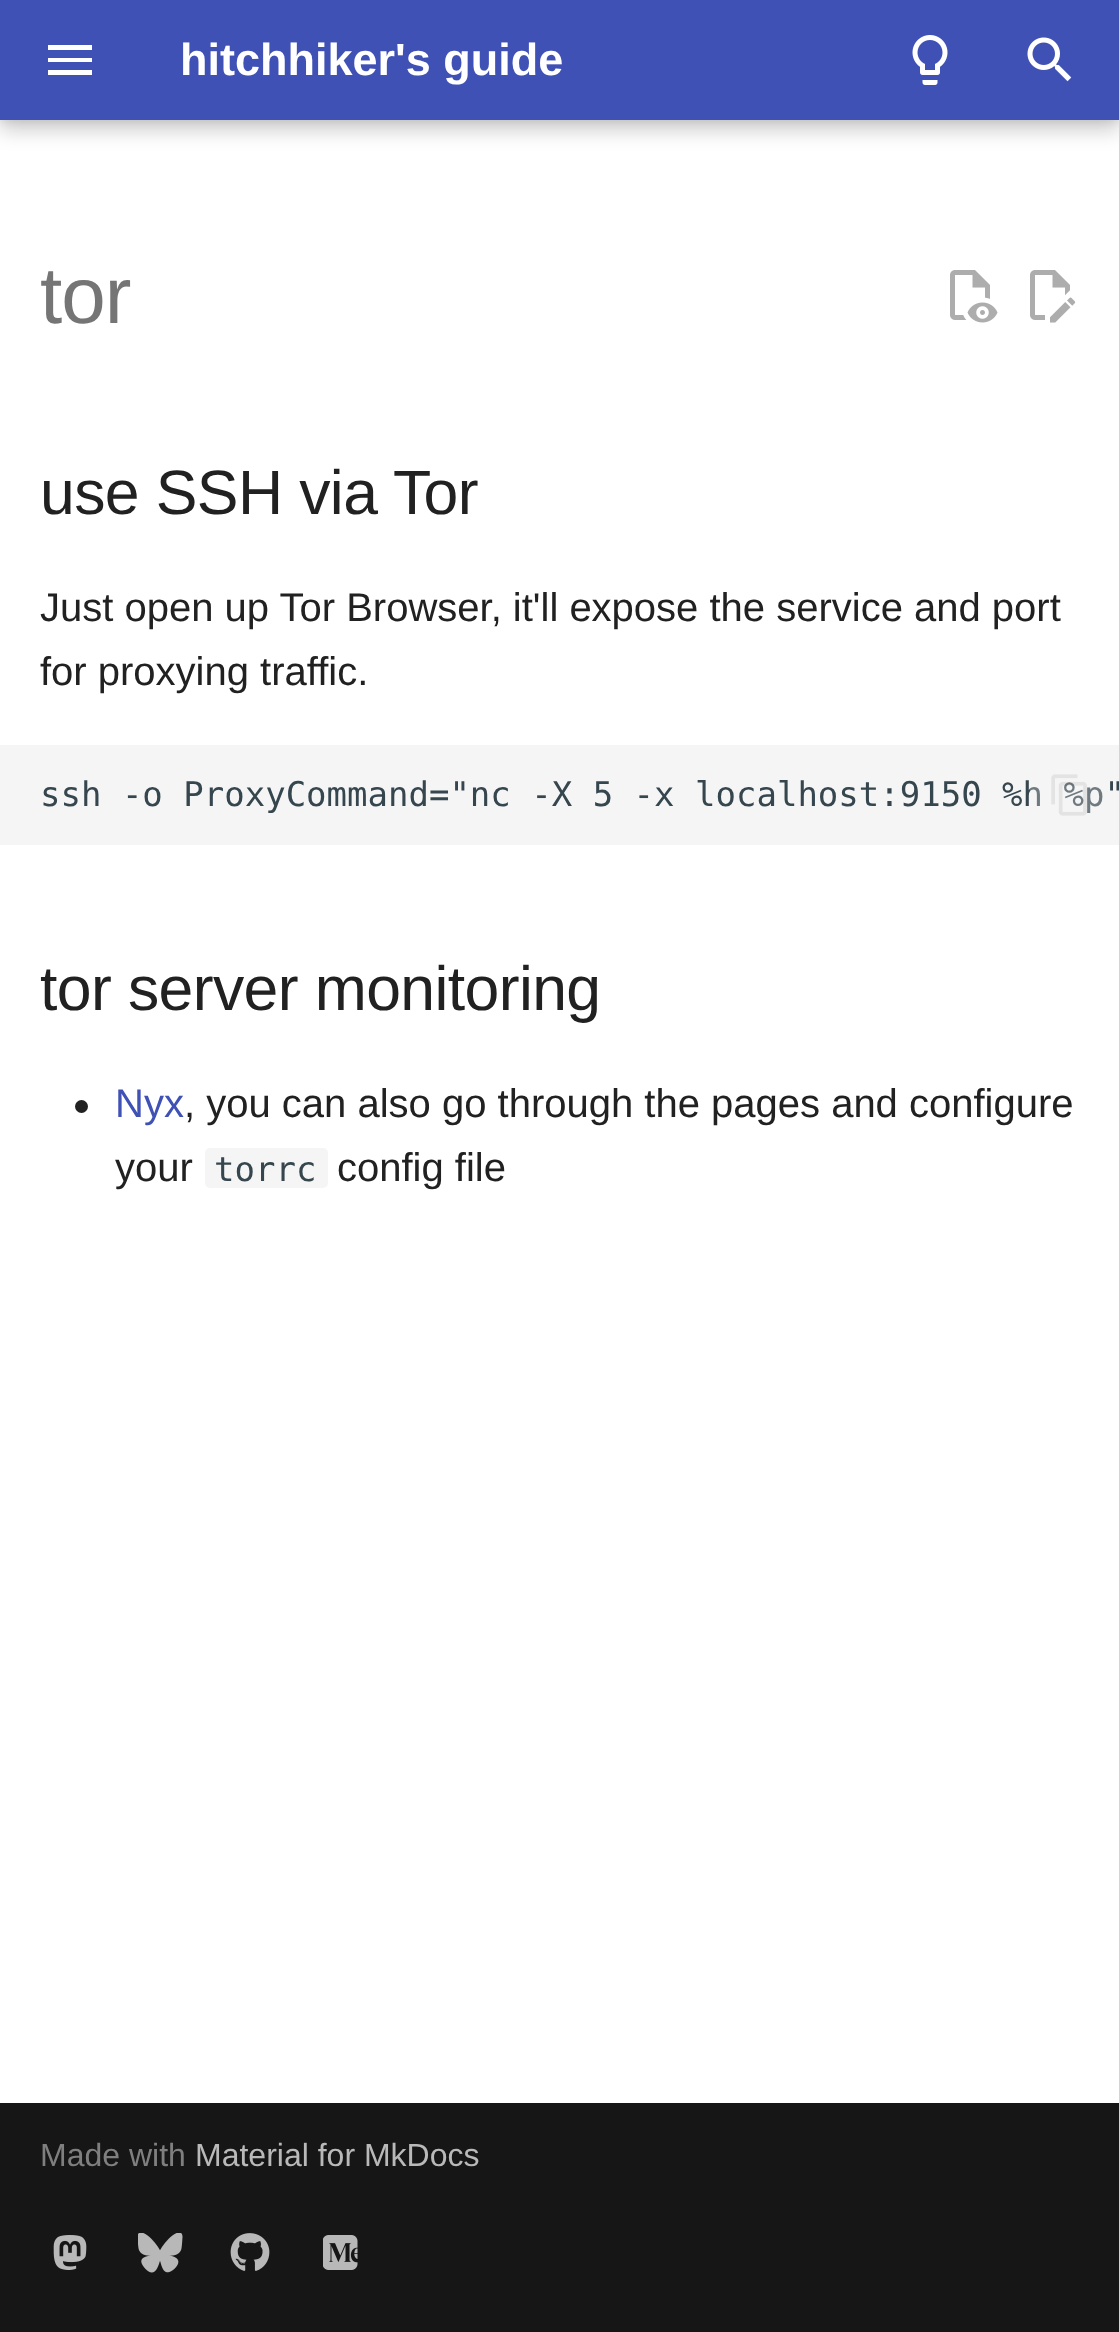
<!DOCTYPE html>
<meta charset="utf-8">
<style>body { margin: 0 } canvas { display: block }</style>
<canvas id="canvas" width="1119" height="2332"></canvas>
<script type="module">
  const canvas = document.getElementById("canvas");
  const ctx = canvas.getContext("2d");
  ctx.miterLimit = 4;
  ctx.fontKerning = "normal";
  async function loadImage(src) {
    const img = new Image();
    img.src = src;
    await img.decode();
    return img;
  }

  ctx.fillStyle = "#ffffff";
  ctx.fillRect(0, 0, 1119, 2332);
  ctx.fillStyle = "rgba(0, 0, 0, 0.2)";
  ctx.filter = "blur(10px)";
  ctx.beginPath();
  ctx.rect(0, 10, 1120, 120);
  ctx.fill();
  ctx.filter = "none";
  ctx.fillStyle = "rgba(0, 0, 0, 0.1)";
  ctx.filter = "blur(5px)";
  ctx.beginPath();
  ctx.rect(0, 0, 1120, 120);
  ctx.fill();
  ctx.filter = "none";
  ctx.fillStyle = "#4051b5";
  ctx.fillRect(0, 0, 1119, 120);
  ctx.fillStyle = "#ffffff";
  ctx.beginPath();
  ctx.moveTo(48, 45);
  ctx.lineTo(92, 45);
  ctx.lineTo(92, 50);
  ctx.lineTo(48, 50);
  ctx.closePath();
  ctx.moveTo(48, 58);
  ctx.lineTo(92, 58);
  ctx.lineTo(92, 62);
  ctx.lineTo(48, 62);
  ctx.closePath();
  ctx.moveTo(48, 70);
  ctx.lineTo(92, 70);
  ctx.lineTo(92, 75);
  ctx.lineTo(48, 75);
  ctx.closePath();
  ctx.fill();
  ctx.font = "bold 45px Liberation Sans";
  ctx.fillText("hitchhiker's guide", 180, 75);
  ctx.drawImage(await loadImage("img1.png"), 912, 35, 36, 50);
  ctx.drawImage(await loadImage("img2.png"), 1027, 37, 45, 45);
  ctx.letterSpacing = "-1px";
  ctx.font = "80px Liberation Sans";
  ctx.fillStyle = "#757575";
  ctx.fillText("tor", 40, 323);
  ctx.drawImage(await loadImage("img3.png"), 950, 270, 48, 53);
  ctx.drawImage(await loadImage("img4.png"), 1030, 270, 46, 53);
  ctx.letterSpacing = "-0.6px";
  ctx.font = "62.5px Liberation Sans";
  ctx.fillStyle = "#212121";
  ctx.fillText("use SSH via Tor", 40, 514);
  ctx.letterSpacing = "0px";
  ctx.font = "40px Liberation Sans";
  ctx.fillText("Just open up Tor Browser, it'll expose the service and port", 40, 621);
  ctx.fillText("for proxying traffic.", 40, 685);
  ctx.fillStyle = "#f5f5f5";
  ctx.fillRect(0, 745, 1119, 100);
  ctx.font = "34px DejaVu Sans Mono";
  ctx.fillStyle = "#36464e";
  ctx.fillText("ssh -o ProxyCommand=\"nc -X 5 -x localhost:9150 %h %p\"", 40, 806);
  ctx.fillStyle = "rgba(245, 245, 245, 0.3)";
  ctx.beginPath();
  ctx.roundRect(1030, 755, 80, 80, 5);
  ctx.fill();
  ctx.drawImage(await loadImage("img5.png"), 1051, 774, 36, 42);
  ctx.letterSpacing = "-0.6px";
  ctx.font = "62.5px Liberation Sans";
  ctx.fillStyle = "#212121";
  ctx.fillText("tor server monitoring", 40, 1010);
  ctx.beginPath();
  ctx.arc(81.5, 1106.5, 6.5, 0, Math.PI * 2);
  ctx.fill();
  ctx.letterSpacing = "0px";
  ctx.font = "40px Liberation Sans";
  ctx.fillStyle = "#4051b5";
  ctx.fillText("Nyx", 115, 1117);
  ctx.fillStyle = "#212121";
  ctx.fillText(", you can also go through the pages and configure", 184, 1117);
  ctx.fillText("your", 115, 1181);
  ctx.fillStyle = "#f5f5f5";
  ctx.beginPath();
  ctx.roundRect(205, 1148, 123, 40, 5);
  ctx.fill();
  ctx.font = "34px DejaVu Sans Mono";
  ctx.fillStyle = "#36464e";
  ctx.fillText("torrc", 214, 1181);
  ctx.font = "40px Liberation Sans";
  ctx.fillStyle = "#212121";
  ctx.fillText("config file", 337, 1181);
  ctx.fillStyle = "#161616";
  ctx.fillRect(0, 2103, 1119, 229);
  ctx.font = "32px Liberation Sans";
  ctx.fillStyle = "#7f7f7f";
  ctx.fillText("Made with", 40, 2166);
  ctx.fillStyle = "#b9b9b9";
  ctx.fillText("Material for MkDocs", 195, 2166);
  ctx.drawImage(await loadImage("img6.png"), 53, 2235, 34, 35);
  ctx.drawImage(await loadImage("img7.png"), 138, 2233, 45, 40);
  ctx.drawImage(await loadImage("img8.png"), 230, 2233, 40, 38);
  ctx.drawImage(await loadImage("img9.png"), 323, 2235, 35, 35);
</script>
